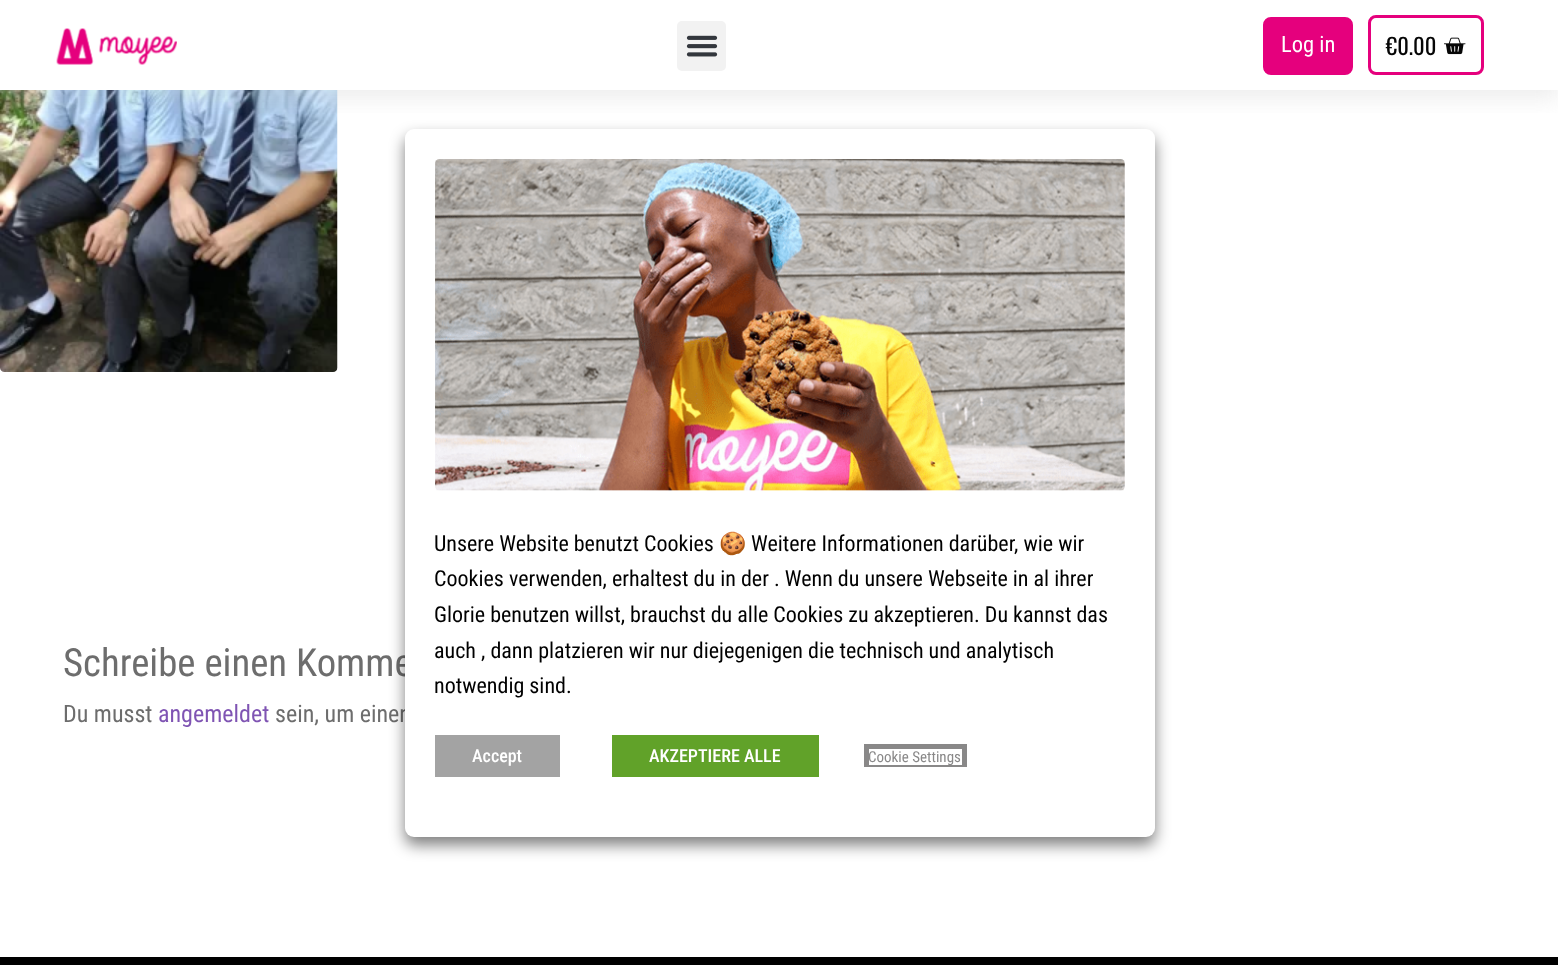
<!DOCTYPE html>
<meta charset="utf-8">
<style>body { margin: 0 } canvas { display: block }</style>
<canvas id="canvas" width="1558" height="965"></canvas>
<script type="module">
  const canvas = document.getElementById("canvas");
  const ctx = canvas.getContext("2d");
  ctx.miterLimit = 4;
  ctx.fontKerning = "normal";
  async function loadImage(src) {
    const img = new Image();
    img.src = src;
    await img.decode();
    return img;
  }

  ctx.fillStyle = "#ffffff";
  ctx.fillRect(0, 0, 1558, 965);
  ctx.drawImage(await loadImage("img4.png"), 0, 90, 338, 282);
  ctx.save();
  ctx.beginPath();
  ctx.rect(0, 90, 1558, 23);
  ctx.clip();
  ctx.fillStyle = "rgba(178, 178, 178, 0.25)";
  ctx.filter = "blur(11px)";
  ctx.beginPath();
  ctx.rect(0, 8, 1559, 90);
  ctx.fill();
  ctx.filter = "none";
  ctx.restore();
  ctx.drawImage(await loadImage("img1.png"), 56, 28, 121, 37);
  ctx.fillStyle = "#f2f2f2";
  ctx.beginPath();
  ctx.roundRect(677, 21, 49, 50, 5);
  ctx.fill();
  ctx.drawImage(await loadImage("img2.png"), 686, 35, 32, 22);
  ctx.fillStyle = "#e5007d";
  ctx.beginPath();
  ctx.roundRect(1264.5, 18.5, 87, 55, 6.5);
  ctx.fill();
  ctx.strokeStyle = "#e5007d";
  ctx.lineWidth = 3;
  ctx.stroke();
  ctx.font = "22.5px Roboto Condensed";
  ctx.fillStyle = "#ffffff";
  ctx.fillText("Log in", 1281, 52);
  ctx.beginPath();
  ctx.roundRect(1369.5, 16.5, 113, 57, 6.5);
  ctx.stroke();
  ctx.font = "22.5px Oswald";
  ctx.fillStyle = "#060606";
  ctx.fillText("€0.00", 1386, 55);
  ctx.drawImage(await loadImage("img3.png"), 1444, 37, 22, 18);
  ctx.font = "38.75px Roboto Condensed";
  ctx.fillStyle = "#6d6d6d";
  ctx.fillText("Schreibe einen Komme", 63, 676);
  ctx.font = "24px Roboto Condensed";
  ctx.fillText("Du musst", 63, 722);
  ctx.fillStyle = "#7f54b3";
  ctx.fillText("angemeldet", 158, 722);
  ctx.fillStyle = "#6d6d6d";
  ctx.fillText("sein, um einen", 275, 722);
  ctx.fillStyle = "rgba(0, 0, 0, 0.5)";
  ctx.filter = "blur(7.5px)";
  ctx.beginPath();
  ctx.roundRect(405, 137, 750, 708, 9);
  ctx.fill();
  ctx.filter = "none";
  ctx.fillStyle = "#ffffff";
  ctx.beginPath();
  ctx.roundRect(405, 129, 750, 708, 9);
  ctx.fill();
  ctx.drawImage(await loadImage("img5.png"), 435, 159, 690, 332);
  ctx.font = "22px Roboto Condensed";
  ctx.fillStyle = "#000000";
  ctx.fillText("Unsere Website benutzt Cookies", 434, 551);
  ctx.font = "22px Noto Color Emoji";
  ctx.fillText("🍪", 719, 551);
  ctx.font = "22px Roboto Condensed";
  ctx.fillText("Weitere Informationen darüber, wie wir", 751, 551);
  ctx.fillText("Cookies verwenden, erhaltest du in der . Wenn du unsere Webseite in al ihrer", 434, 586);
  ctx.fillText("Glorie benutzen willst, brauchst du alle Cookies zu akzeptieren. Du kannst das", 434, 622);
  ctx.fillText("auch , dann platzieren wir nur diejegenigen die technisch und analytisch", 434, 658);
  ctx.fillText("notwendig sind.", 434, 693);
  ctx.fillStyle = "#a3a3a3";
  ctx.fillRect(435, 735, 125, 42);
  ctx.font = "500 18px Roboto Condensed";
  ctx.fillStyle = "#ffffff";
  ctx.fillText("Accept", 472, 762);
  ctx.fillStyle = "#61a229";
  ctx.fillRect(612, 735, 207, 42);
  ctx.fillStyle = "#ffffff";
  ctx.fillText("AKZEPTIERE ALLE", 649, 762);
  ctx.fillStyle = "#898888";
  ctx.fillRect(864, 744, 102, 5);
  ctx.fillRect(962, 744, 5, 23);
  ctx.fillRect(864, 765, 102, 2);
  ctx.fillRect(864, 744, 5, 23);
  ctx.font = "15px Roboto Condensed";
  ctx.fillText("Cookie Settings", 868, 762);
  ctx.fillStyle = "#000000";
  ctx.fillRect(0, 957, 1558, 8);
</script>
